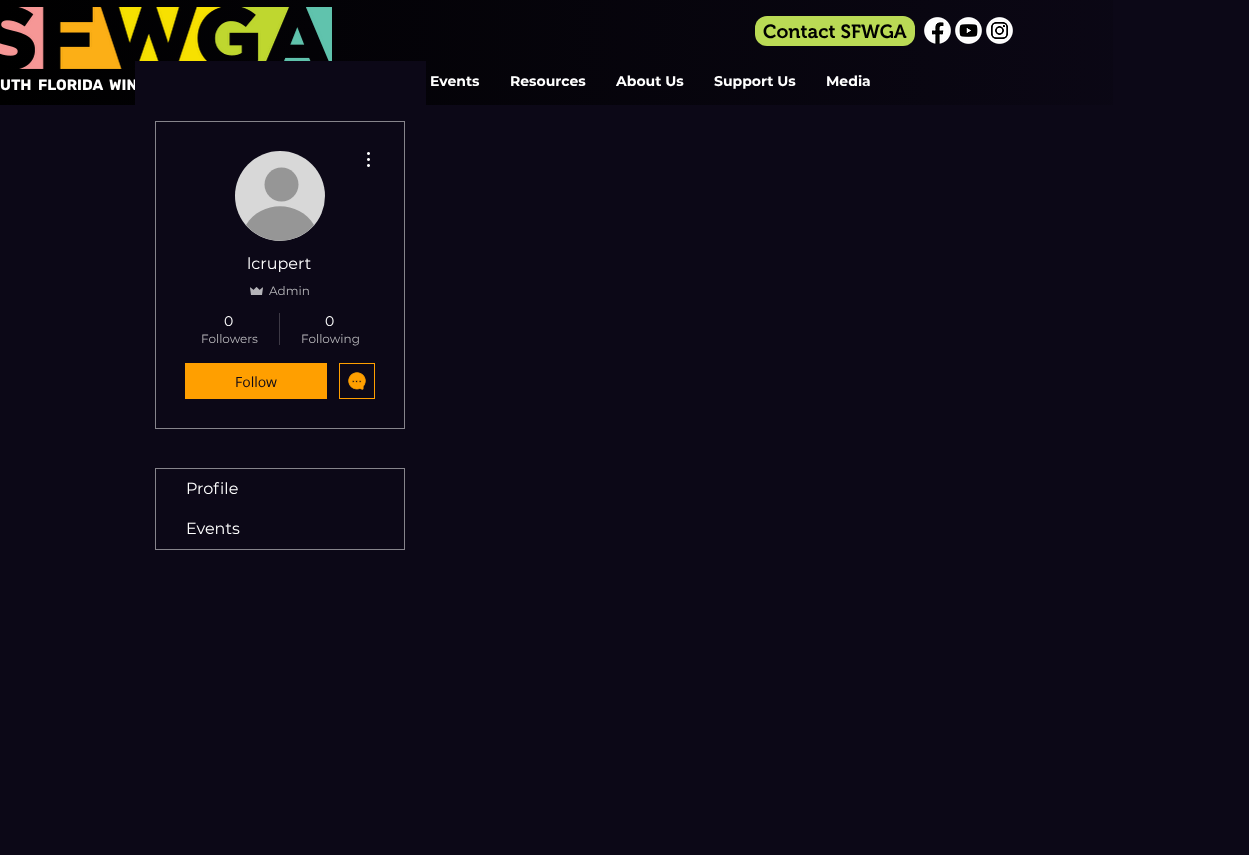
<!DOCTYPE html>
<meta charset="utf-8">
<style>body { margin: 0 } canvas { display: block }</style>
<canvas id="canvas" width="1249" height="855"></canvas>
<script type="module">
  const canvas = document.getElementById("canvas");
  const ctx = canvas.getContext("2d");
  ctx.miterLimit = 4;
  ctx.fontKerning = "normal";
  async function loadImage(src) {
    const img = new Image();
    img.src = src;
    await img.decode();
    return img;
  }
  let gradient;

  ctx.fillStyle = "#0c0817";
  ctx.fillRect(0, 0, 1249, 855);
  gradient = ctx.createLinearGradient(0, 53, 1249, 52);
  gradient.addColorStop(0, "#000000");
  gradient.addColorStop(1, "#0c0817");
  ctx.fillStyle = gradient;
  ctx.fillRect(0, 0, 1113, 105);
  ctx.drawImage(await loadImage("img1.png"), 0, 7, 332, 62);
  ctx.fillStyle = "#bada55";
  ctx.beginPath();
  ctx.roundRect(755, 16, 160, 30, 12);
  ctx.fill();
  ctx.font = "600 19px 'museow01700'";
  ctx.fillStyle = "#000000";
  ctx.fillText("Contact SFWGA", 763, 38);
  ctx.drawImage(await loadImage("img2.png"), 924, 17, 27, 27);
  ctx.drawImage(await loadImage("img3.png"), 955, 17, 27, 27);
  ctx.drawImage(await loadImage("img4.png"), 986, 17, 27, 27);
  ctx.font = "bold 15px Rubik";
  ctx.fillStyle = "#ffffff";
  ctx.fillText("UTH  FLORIDA  WIN", 0, 90);
  ctx.font = "bold 14px Montserrat";
  ctx.fillText("Events", 430, 86);
  ctx.fillText("Resources", 510, 86);
  ctx.fillText("About Us", 616, 86);
  ctx.fillText("Support Us", 714, 86);
  ctx.fillText("Media", 826, 86);
  ctx.fillStyle = "#0c0817";
  ctx.fillRect(135, 61, 291, 44);
  ctx.strokeStyle = "#86848b";
  ctx.strokeRect(155.5, 121.5, 249, 307);
  ctx.fillStyle = "#d8d8d8";
  ctx.beginPath();
  ctx.arc(280, 196, 45, 0, Math.PI * 2);
  ctx.fill();
  ctx.fillStyle = "#969696";
  ctx.beginPath();
  ctx.arc(281.5, 184.5, 17, 0, Math.PI * 2);
  ctx.fill();
  ctx.beginPath();
  ctx.moveTo(314, 225);
  ctx.bezierCurveTo(296, 246, 264, 246, 246, 225);
  ctx.bezierCurveTo(261, 200, 299, 200, 314, 225);
  ctx.closePath();
  ctx.fill();
  ctx.drawImage(await loadImage("img5.png"), 367, 152, 3, 15);
  ctx.font = "16px Montserrat";
  ctx.fillStyle = "#ffffff";
  ctx.fillText("lcrupert", 247, 269);
  ctx.drawImage(await loadImage("img6.png"), 250, 287, 13, 8);
  ctx.font = "12px Montserrat";
  ctx.fillStyle = "#b6b5b9";
  ctx.fillText("Admin", 269, 295);
  ctx.font = "14px Montserrat";
  ctx.fillStyle = "#ffffff";
  ctx.fillText("0", 224, 326);
  ctx.font = "12px Montserrat";
  ctx.fillStyle = "#b6b5b9";
  ctx.fillText("Followers", 201, 343);
  ctx.fillStyle = "#3d3945";
  ctx.fillRect(279, 313, 1, 32);
  ctx.font = "14px Montserrat";
  ctx.fillStyle = "#ffffff";
  ctx.fillText("0", 325, 326);
  ctx.font = "12px Montserrat";
  ctx.fillStyle = "#b6b5b9";
  ctx.fillText("Following", 301, 343);
  ctx.fillStyle = "#ff9f00";
  ctx.fillRect(185, 363, 142, 36);
  ctx.font = "14px Open Sans";
  ctx.fillStyle = "#0c0817";
  ctx.fillText("Follow", 235, 387);
  ctx.strokeStyle = "#ff9f00";
  ctx.strokeRect(339.5, 363.5, 35, 35);
  ctx.drawImage(await loadImage("img7.png"), 348, 372, 18, 18);
  ctx.strokeStyle = "#86848b";
  ctx.strokeRect(155.5, 468.5, 249, 81);
  ctx.font = "16px Montserrat";
  ctx.fillStyle = "#ffffff";
  ctx.fillText("Profile", 186, 494);
  ctx.fillText("Events", 186, 534);
</script>
